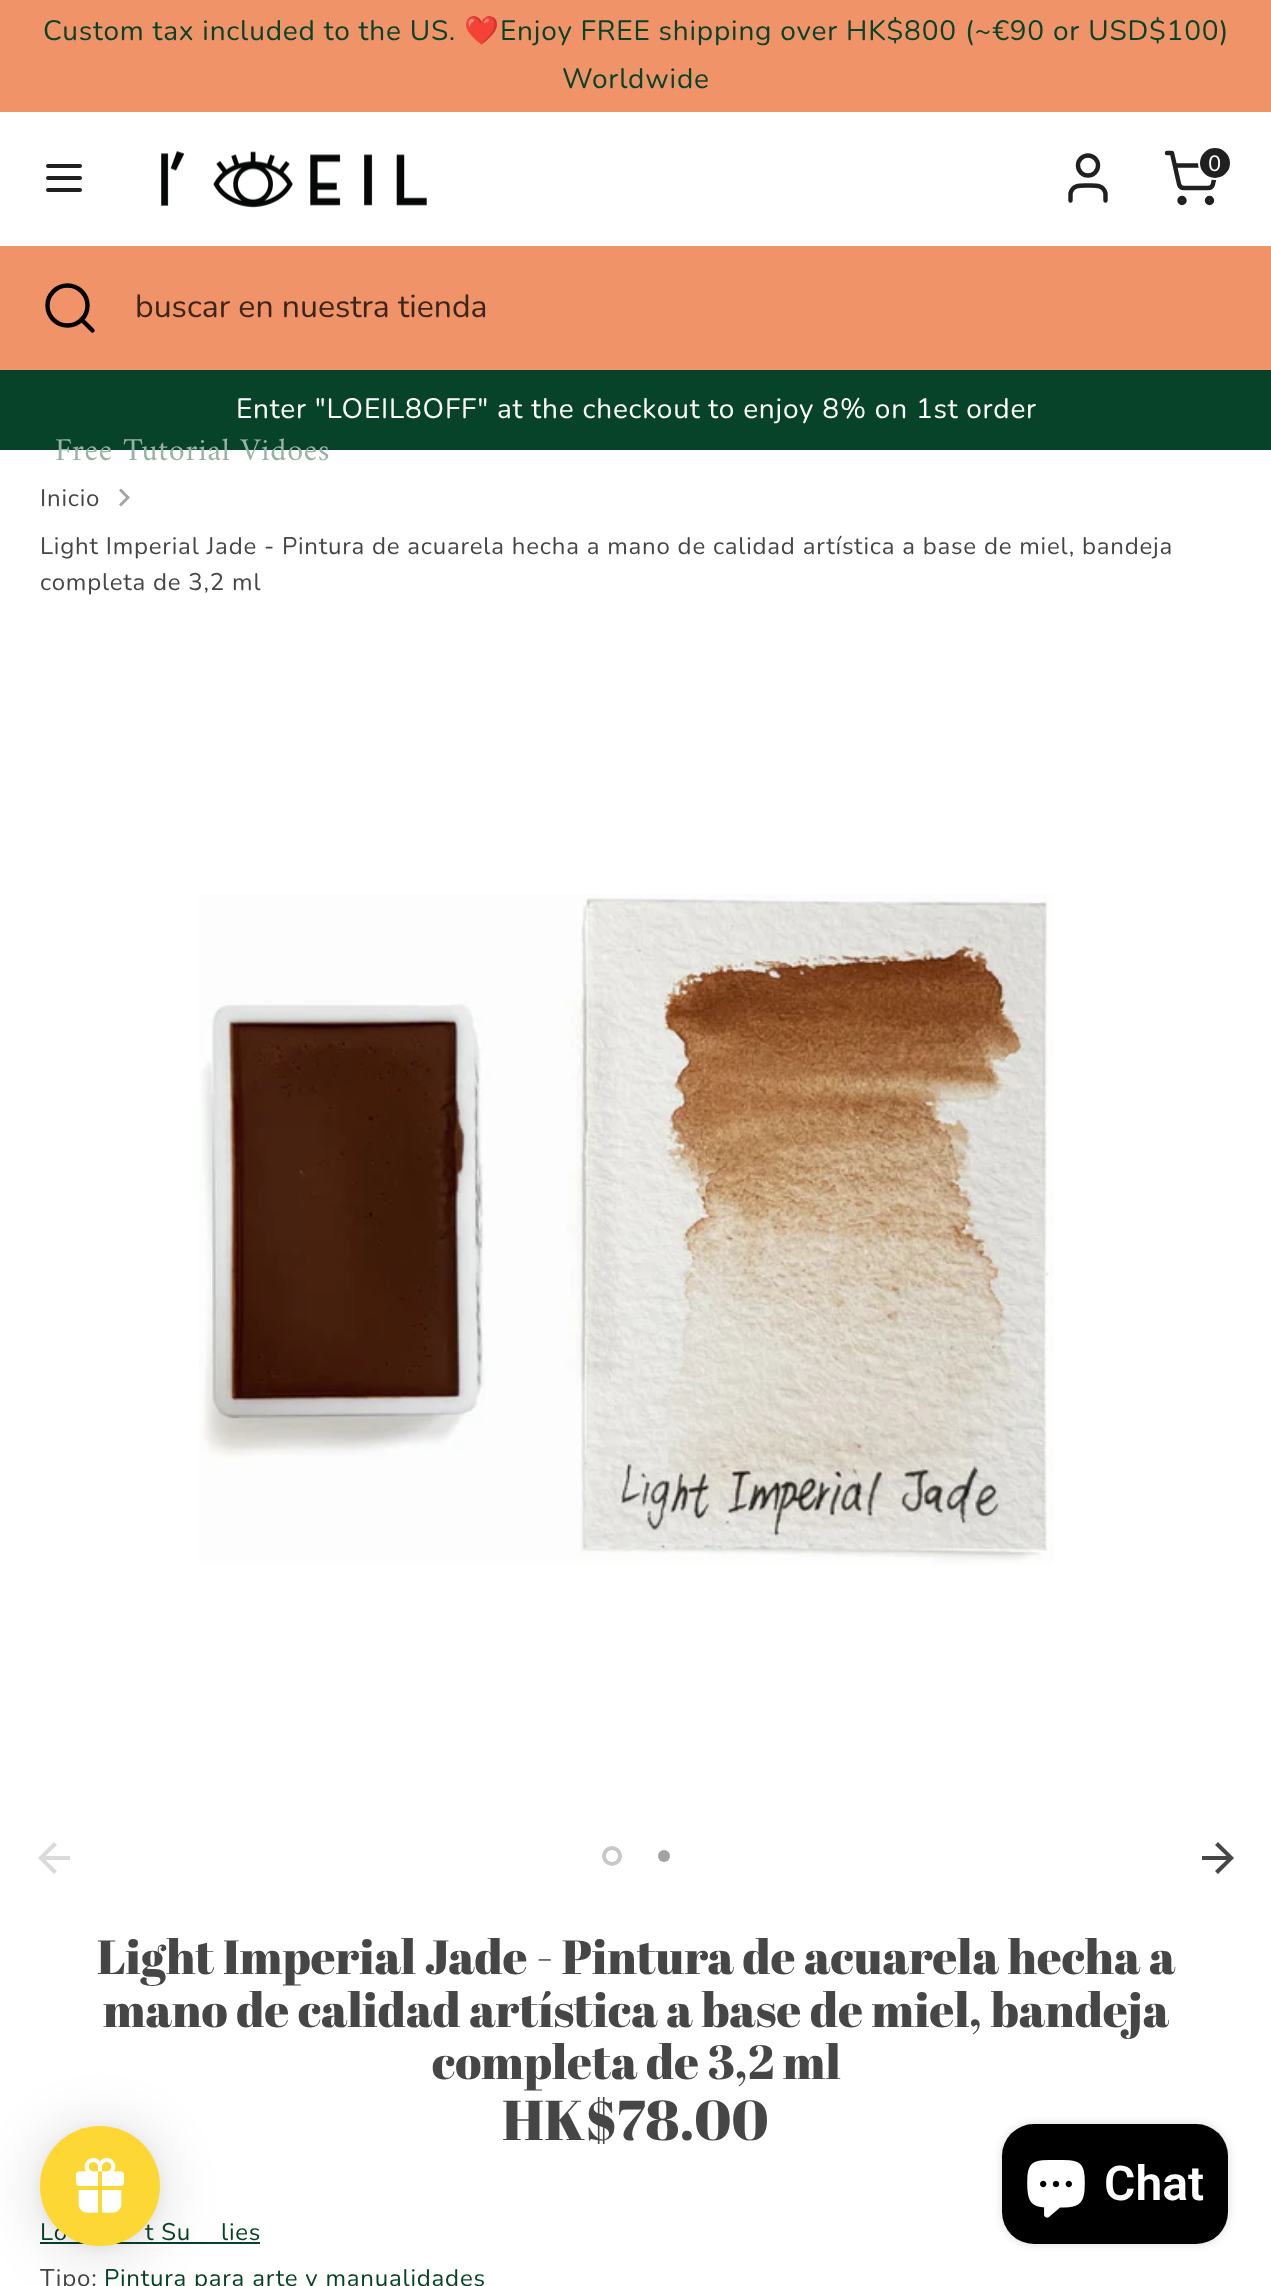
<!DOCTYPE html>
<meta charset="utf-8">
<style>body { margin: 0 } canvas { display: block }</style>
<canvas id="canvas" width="1271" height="2286"></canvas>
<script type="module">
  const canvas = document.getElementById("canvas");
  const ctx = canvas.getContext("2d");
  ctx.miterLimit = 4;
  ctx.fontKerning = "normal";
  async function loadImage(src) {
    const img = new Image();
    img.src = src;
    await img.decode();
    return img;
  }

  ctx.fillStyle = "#ffffff";
  ctx.fillRect(0, 0, 1271, 2286);
  ctx.fillStyle = "#f09369";
  ctx.fillRect(0, 0, 1271, 112);
  ctx.letterSpacing = "0.8px";
  ctx.font = "28px Nunito";
  ctx.fillStyle = "#074328";
  ctx.fillText("Custom tax included to the US.", 43, 40);
  ctx.font = "28px Noto Color Emoji";
  ctx.fillText("❤️", 464, 40);
  ctx.font = "28px Nunito";
  ctx.fillText("Enjoy FREE shipping over HK$800 (~€90 or USD$100)", 500, 40);
  ctx.fillText("Worldwide", 562, 88);
  ctx.beginPath();
  ctx.moveTo(48, 178);
  ctx.lineTo(80, 178);
  ctx.moveTo(48, 166);
  ctx.lineTo(80, 166);
  ctx.moveTo(48, 190);
  ctx.lineTo(80, 190);
  ctx.strokeStyle = "#202020";
  ctx.lineWidth = 4;
  ctx.lineCap = "round";
  ctx.lineJoin = "round";
  ctx.stroke();
  ctx.drawImage(await loadImage("img1.png"), 161, 151, 266, 57);
  ctx.beginPath();
  ctx.moveTo(1105.5, 200.5);
  ctx.lineTo(1105.5, 193.5);
  ctx.bezierCurveTo(1103.5, 184.5, 1095, 185.5, 1088, 185.5);
  ctx.bezierCurveTo(1081, 185.5, 1072.5, 184.5, 1070.5, 193.5);
  ctx.lineTo(1070.5, 200.5);
  ctx.lineWidth = 4.4;
  ctx.stroke();
  ctx.beginPath();
  ctx.arc(1088, 165.5, 10, 0, Math.PI * 2);
  ctx.stroke();
  ctx.beginPath();
  ctx.arc(1182, 200.5, 2.5, 0, Math.PI * 2);
  ctx.stroke();
  ctx.beginPath();
  ctx.arc(1209.5, 200.5, 2.5, 0, Math.PI * 2);
  ctx.stroke();
  ctx.beginPath();
  ctx.moveTo(1167, 153);
  ctx.lineTo(1172, 153);
  ctx.lineTo(1179, 184);
  ctx.bezierCurveTo(1179.5, 186.5, 1181.5, 188, 1184, 188);
  ctx.lineTo(1208, 188);
  ctx.bezierCurveTo(1210.5, 188, 1212.5, 186.5, 1213, 184);
  ctx.lineTo(1217, 165.5);
  ctx.lineTo(1175, 165.5);
  ctx.stroke();
  ctx.fillStyle = "#202020";
  ctx.beginPath();
  ctx.arc(1215, 163, 16, 0, Math.PI * 2);
  ctx.fill();
  ctx.strokeStyle = "#ffffff";
  ctx.lineWidth = 2;
  ctx.stroke();
  ctx.letterSpacing = "0px";
  ctx.font = "22px Nunito";
  ctx.fillStyle = "#ffffff";
  ctx.fillText("0", 1208, 171);
  ctx.fillStyle = "#f09369";
  ctx.fillRect(0, 246, 1271, 124);
  ctx.beginPath();
  ctx.arc(67.5, 305.5, 20, 0, Math.PI * 2);
  ctx.strokeStyle = "#000000";
  ctx.lineWidth = 4.4;
  ctx.stroke();
  ctx.beginPath();
  ctx.moveTo(92.5, 330.5);
  ctx.lineTo(81.5, 319.5);
  ctx.stroke();
  ctx.font = "32px Nunito";
  ctx.fillStyle = "#3c251a";
  ctx.fillText("buscar en nuestra tienda", 135, 317);
  ctx.fillStyle = "#074328";
  ctx.fillRect(0, 370, 1271, 80);
  ctx.letterSpacing = "0.8px";
  ctx.font = "28px Nunito";
  ctx.fillStyle = "#ffffff";
  ctx.fillText("Enter \"LOEIL8OFF\" at the checkout to enjoy 8% on 1st order", 236, 418);
  ctx.font = "32px Amiri";
  ctx.fillStyle = "#99b2a7";
  ctx.fillText("Free Tutorial Vidoes", 55, 460);
  ctx.font = "24px Nunito";
  ctx.fillStyle = "#474646";
  ctx.fillText("Inicio", 40, 506);
  ctx.fillStyle = "#a3a3a3";
  ctx.beginPath();
  ctx.moveTo(119, 504.5);
  ctx.lineTo(126, 497.5);
  ctx.lineTo(119, 490.5);
  ctx.lineTo(121, 488.5);
  ctx.lineTo(130, 497.5);
  ctx.lineTo(121, 506.5);
  ctx.closePath();
  ctx.fill();
  ctx.fillStyle = "#474646";
  ctx.fillText("Light Imperial Jade - Pintura de acuarela hecha a mano de calidad artística a base de miel, bandeja", 40, 554);
  ctx.fillText("completa de 3,2 ml", 40, 590);
  ctx.drawImage(await loadImage("img2.png"), 199, 894, 855, 671);
  ctx.fillStyle = "#dadada";
  ctx.beginPath();
  ctx.moveTo(70, 1856);
  ctx.lineTo(45.5, 1856);
  ctx.lineTo(57, 1845);
  ctx.lineTo(54, 1842);
  ctx.lineTo(38, 1858);
  ctx.lineTo(54, 1874);
  ctx.lineTo(57, 1871);
  ctx.lineTo(45.5, 1860);
  ctx.lineTo(70, 1860);
  ctx.closePath();
  ctx.fill();
  ctx.fillStyle = "#474646";
  ctx.beginPath();
  ctx.moveTo(1218, 1842);
  ctx.lineTo(1215, 1845);
  ctx.lineTo(1226.5, 1856);
  ctx.lineTo(1202, 1856);
  ctx.lineTo(1202, 1860);
  ctx.lineTo(1226.5, 1860);
  ctx.lineTo(1215, 1871);
  ctx.lineTo(1218, 1874);
  ctx.lineTo(1234, 1858);
  ctx.closePath();
  ctx.fill();
  ctx.beginPath();
  ctx.arc(612, 1856, 8, 0, Math.PI * 2);
  ctx.strokeStyle = "#c8c8c8";
  ctx.lineWidth = 4;
  ctx.stroke();
  ctx.fillStyle = "#a3a3a3";
  ctx.beginPath();
  ctx.arc(664, 1856, 6, 0, Math.PI * 2);
  ctx.fill();
  ctx.letterSpacing = "0px";
  ctx.font = "48px Abril Fatface";
  ctx.fillStyle = "#474646";
  ctx.fillText("Light Imperial Jade - Pintura de acuarela hecha a", 97, 1974);
  ctx.fillText("mano de calidad artística a base de miel, bandeja", 103, 2027);
  ctx.fillText("completa de 3,2 ml", 432, 2079);
  ctx.font = "56px Abril Fatface";
  ctx.fillText("HK$78.00", 502, 2140);
  ctx.letterSpacing = "0.8px";
  ctx.font = "24px Nunito";
  ctx.fillStyle = "#074328";
  ctx.fillText("Lo", 40, 2240);
  ctx.fillRect(40, 2242, 220, 2);
  ctx.fillText("t Su", 145, 2240);
  ctx.fillText("lies", 221, 2240);
  ctx.fillStyle = "#474646";
  ctx.fillText("Tipo:", 40, 2286);
  ctx.fillStyle = "#074328";
  ctx.fillText("Pintura para arte y manualidades", 104, 2286);
  ctx.fillStyle = "rgba(0, 0, 0, 0.15)";
  ctx.filter = "blur(30px)";
  ctx.beginPath();
  ctx.roundRect(40, 2130, 120, 120, 60);
  ctx.fill();
  ctx.filter = "none";
  ctx.fillStyle = "rgba(0, 0, 0, 0.05)";
  ctx.filter = "blur(6px)";
  ctx.beginPath();
  ctx.roundRect(40, 2128, 120, 120, 60);
  ctx.fill();
  ctx.filter = "none";
  ctx.fillStyle = "#fdd835";
  ctx.beginPath();
  ctx.arc(100, 2186, 60, 0, Math.PI * 2);
  ctx.fill();
  ctx.drawImage(await loadImage("img3.png"), 76, 2158, 48, 55);
  ctx.fillStyle = "rgba(0, 0, 0, 0.15)";
  ctx.filter = "blur(5px)";
  ctx.beginPath();
  ctx.roundRect(1002, 2124, 226, 120, 32);
  ctx.fill();
  ctx.filter = "none";
  ctx.fillStyle = "#000000";
  ctx.beginPath();
  ctx.roundRect(1002, 2124, 226, 120, 32);
  ctx.fill();
  ctx.drawImage(await loadImage("img4.png"), 1027, 2160, 58, 58);
  ctx.letterSpacing = "0px";
  ctx.font = "600 48px Roboto";
  ctx.fillStyle = "#ffffff";
  ctx.fillText("Chat", 1104, 2200);
</script>
